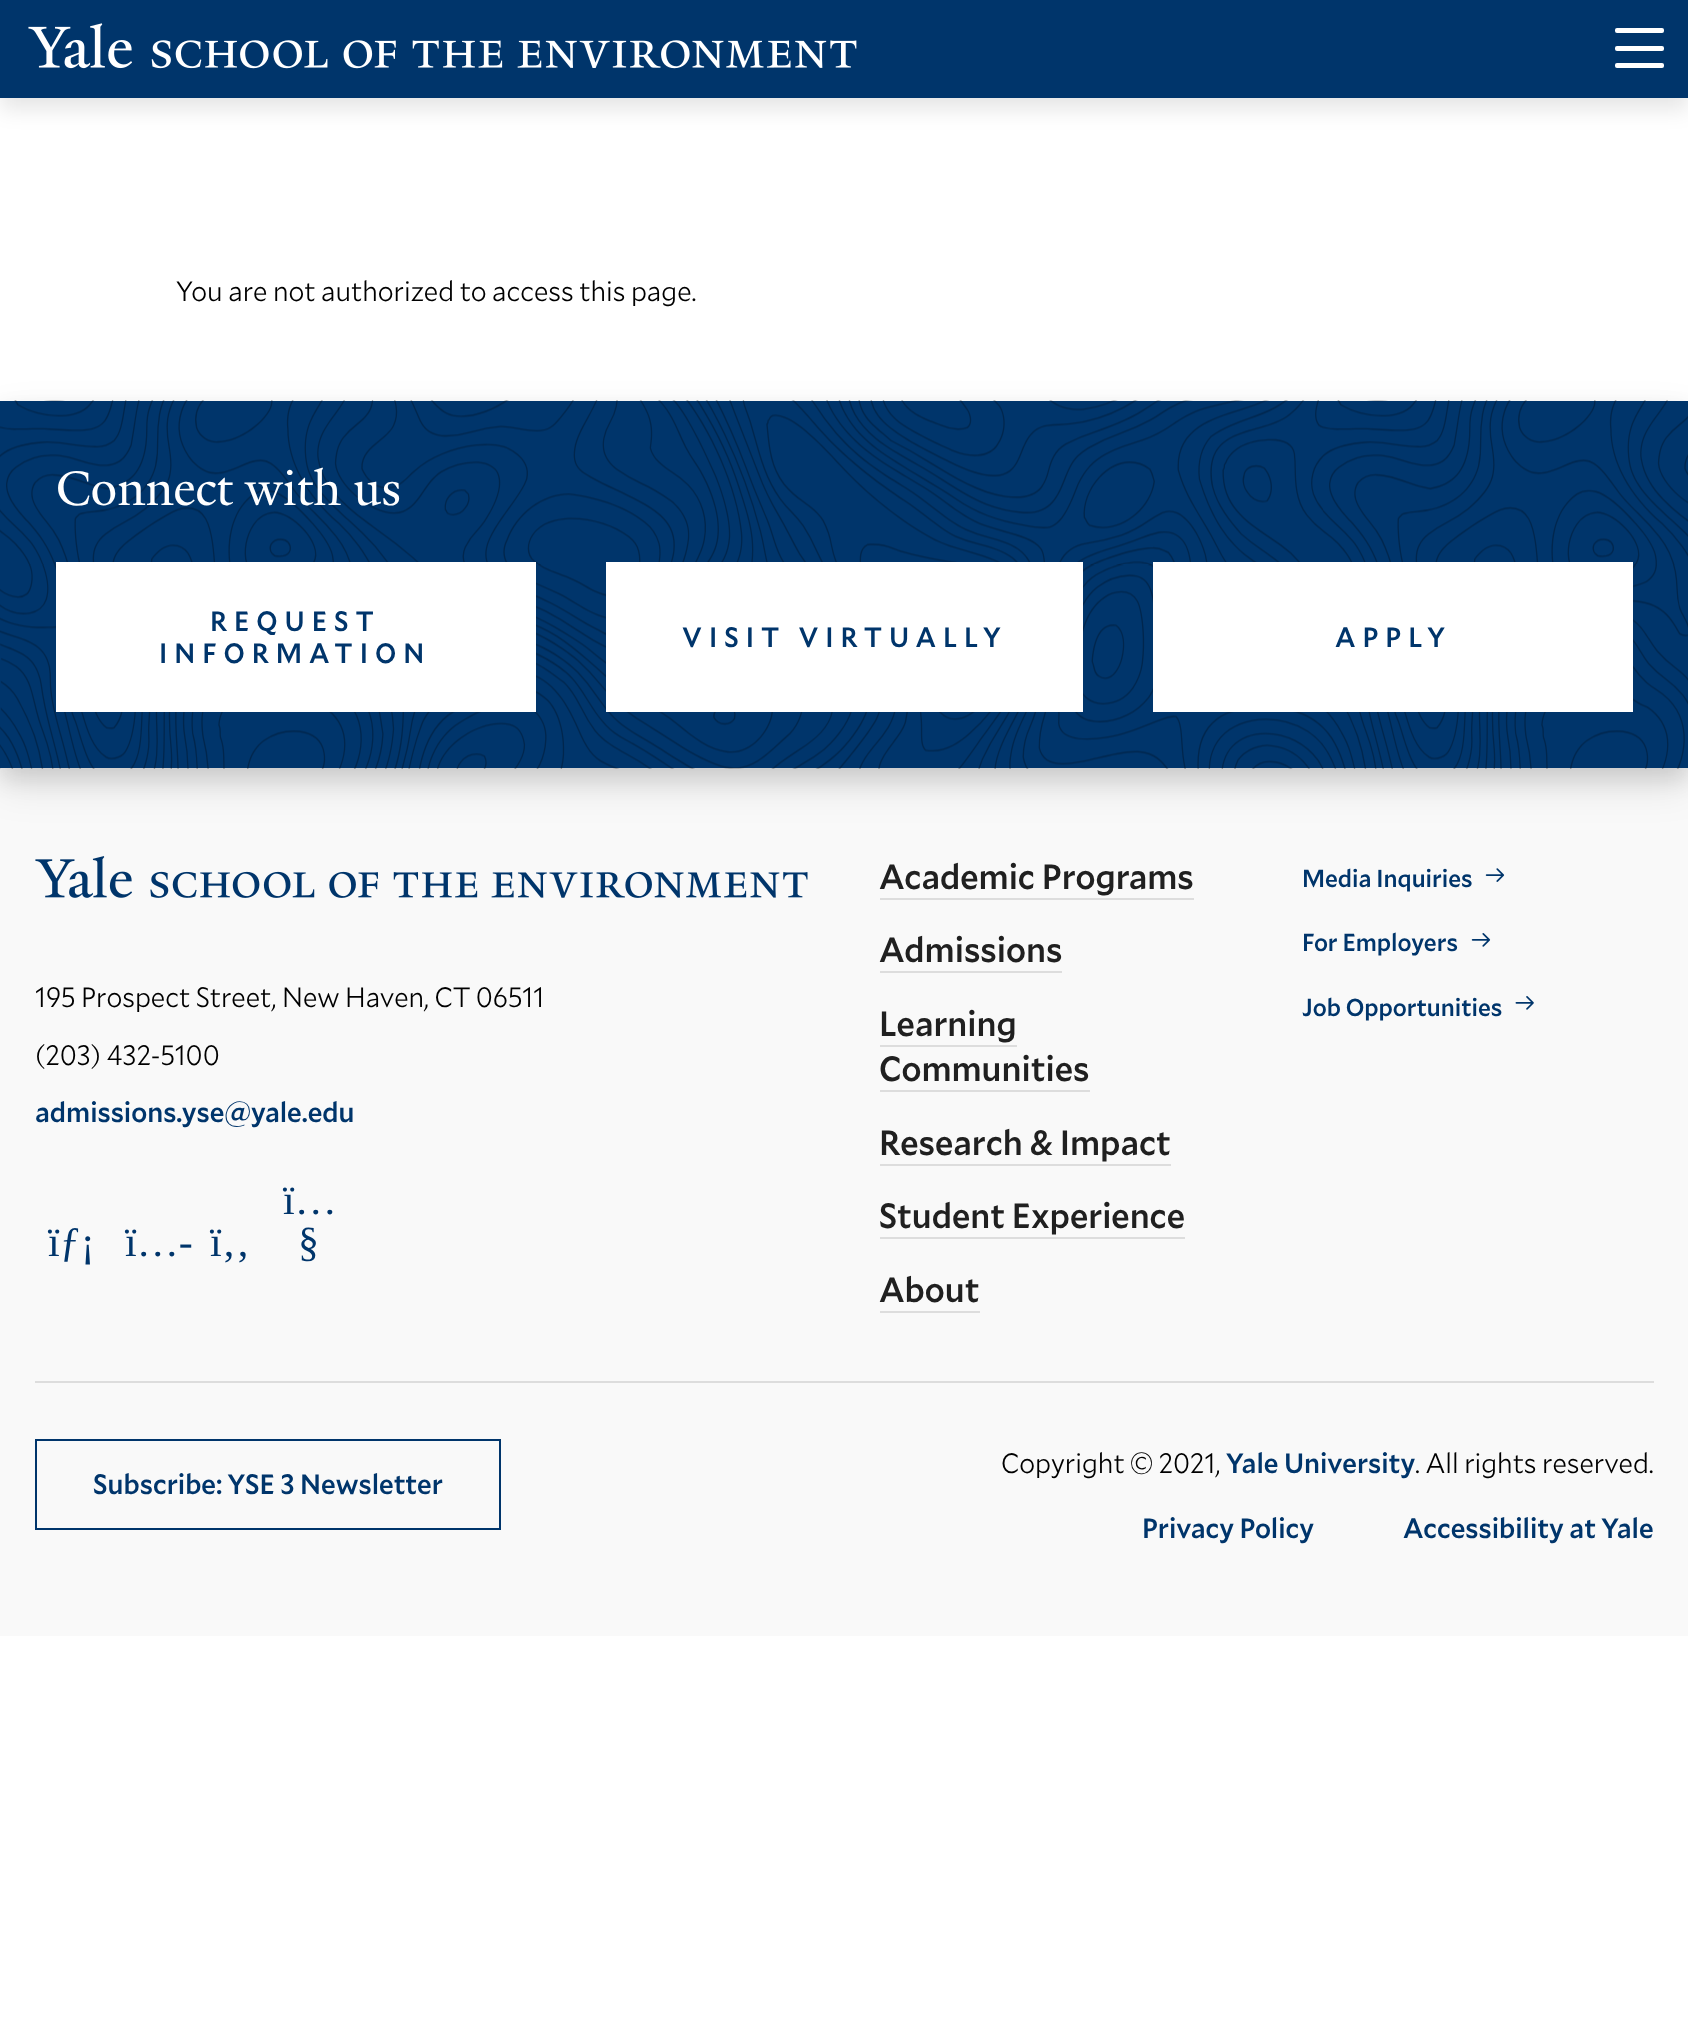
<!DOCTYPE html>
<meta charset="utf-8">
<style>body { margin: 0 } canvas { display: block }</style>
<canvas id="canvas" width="1688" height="2017"></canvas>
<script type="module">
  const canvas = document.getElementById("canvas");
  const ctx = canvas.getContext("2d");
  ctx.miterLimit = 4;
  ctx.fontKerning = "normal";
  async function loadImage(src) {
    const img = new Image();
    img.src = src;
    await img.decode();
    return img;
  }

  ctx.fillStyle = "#ffffff";
  ctx.fillRect(0, 0, 1688, 2017);
  ctx.fillStyle = "rgba(0, 0, 0, 0.1)";
  ctx.filter = "blur(10.5px)";
  ctx.beginPath();
  ctx.rect(0, 11, 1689, 98);
  ctx.fill();
  ctx.filter = "none";
  ctx.fillStyle = "#00356b";
  ctx.fillRect(0, 0, 1688, 98);
  ctx.drawImage(await loadImage("img1.png"), 28, 23, 829, 46);
  ctx.fillStyle = "#ffffff";
  ctx.beginPath();
  ctx.roundRect(1615, 46, 49, 5, 2);
  ctx.fill();
  ctx.beginPath();
  ctx.roundRect(1615, 28, 49, 5, 2);
  ctx.fill();
  ctx.beginPath();
  ctx.roundRect(1615, 63, 49, 5, 2);
  ctx.fill();
  ctx.font = "300 28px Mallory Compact";
  ctx.fillStyle = "#000000";
  ctx.fillText("You are not authorized to access this page.", 176, 301);
  ctx.fillStyle = "#f9f9f9";
  ctx.fillRect(0, 768, 1688, 868);
  ctx.fillStyle = "rgba(0, 0, 0, 0.1)";
  ctx.filter = "blur(19px)";
  ctx.beginPath();
  ctx.rect(0, 418, 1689, 368);
  ctx.fill();
  ctx.filter = "none";
  ctx.filter = "blur(10.5px)";
  ctx.beginPath();
  ctx.rect(0, 411, 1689, 368);
  ctx.fill();
  ctx.filter = "none";
  ctx.fillStyle = "#00356b";
  ctx.fillRect(0, 401, 1688, 367);
  ctx.drawImage(await loadImage("img2.png"), 0, 400, 1688, 369);
  ctx.font = "52.5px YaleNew";
  ctx.fillStyle = "#ffffff";
  ctx.fillText("Connect with us", 56, 505);
  ctx.fillRect(56, 562, 480, 150);
  ctx.letterSpacing = "7px";
  ctx.font = "500 28px Mallory Compact";
  ctx.fillStyle = "#00356b";
  ctx.fillText("REQUEST", 210, 631);
  ctx.fillText("INFORMATION", 159, 663);
  ctx.fillStyle = "#ffffff";
  ctx.fillRect(606, 562, 477, 150);
  ctx.fillStyle = "#00356b";
  ctx.fillText("VISIT VIRTUALLY", 682, 647);
  ctx.fillStyle = "#ffffff";
  ctx.fillRect(1153, 562, 480, 150);
  ctx.fillStyle = "#00356b";
  ctx.fillText("APPLY", 1335, 647);
  ctx.letterSpacing = "0px";
  ctx.font = "500 35px Mallory Compact";
  ctx.fillStyle = "#202020";
  ctx.fillText("Academic Programs", 879, 889);
  ctx.fillStyle = "#dddddd";
  ctx.fillRect(880, 898, 314, 2);
  ctx.fillStyle = "#202020";
  ctx.fillText("Admissions", 879, 962);
  ctx.fillStyle = "#dddddd";
  ctx.fillRect(880, 971, 182, 2);
  ctx.fillStyle = "#202020";
  ctx.fillText("Learning", 879, 1036);
  ctx.fillStyle = "#dddddd";
  ctx.fillRect(880, 1045, 137, 2);
  ctx.fillStyle = "#202020";
  ctx.fillText("Communities", 879, 1081);
  ctx.fillStyle = "#dddddd";
  ctx.fillRect(880, 1090, 210, 2);
  ctx.fillStyle = "#202020";
  ctx.fillText("Research & Impact", 879, 1155);
  ctx.fillStyle = "#dddddd";
  ctx.fillRect(880, 1164, 291, 2);
  ctx.fillStyle = "#202020";
  ctx.fillText("Student Experience", 879, 1228);
  ctx.fillStyle = "#dddddd";
  ctx.fillRect(880, 1237, 305, 2);
  ctx.fillStyle = "#202020";
  ctx.fillText("About", 879, 1302);
  ctx.fillStyle = "#dddddd";
  ctx.fillRect(880, 1311, 100, 2);
  ctx.font = "500 24.5px Mallory Compact";
  ctx.fillStyle = "#00356b";
  ctx.fillText("Media Inquiries", 1302, 887);
  ctx.drawImage(await loadImage("img3.png"), 1485, 868, 20, 14);
  ctx.fillText("For Employers", 1302, 951);
  ctx.drawImage(await loadImage("img4.png"), 1471, 933, 20, 14);
  ctx.fillText("Job Opportunities", 1302, 1016);
  ctx.drawImage(await loadImage("img5.png"), 1515, 996, 19, 14);
  ctx.drawImage(await loadImage("img6.png"), 35, 856, 773, 42);
  ctx.font = "300 28px Mallory Compact";
  ctx.fillStyle = "#000000";
  ctx.fillText("195 Prospect Street, New Haven, CT 06511", 35, 1007);
  ctx.fillText("(203) 432-5100", 35, 1065);
  ctx.font = "500 28px Mallory Compact";
  ctx.fillStyle = "#00356b";
  ctx.fillText("admissions.yse@yale.edu", 35, 1122);
  ctx.font = "42px Liberation Serif";
  ctx.fillText("ïƒ¡", 48, 1256);
  ctx.fillText("ï…-", 125, 1256);
  ctx.fillText("ï‚‚", 210, 1256);
  ctx.fillText("ï…", 283, 1214);
  ctx.fillText("§", 298, 1256);
  ctx.fillStyle = "#dddddd";
  ctx.fillRect(35, 1381, 1619, 2);
  ctx.strokeStyle = "#00356b";
  ctx.lineWidth = 2;
  ctx.strokeRect(36, 1440, 464, 89);
  ctx.font = "500 28px Mallory Compact";
  ctx.fillStyle = "#00356b";
  ctx.fillText("Subscribe: YSE 3 Newsletter", 93, 1494);
  ctx.font = "300 28px Mallory Compact";
  ctx.fillStyle = "#000000";
  ctx.fillText("Copyright © 2021,", 1001, 1473);
  ctx.font = "500 28px Mallory Compact";
  ctx.fillStyle = "#00356b";
  ctx.fillText("Yale University", 1226, 1473);
  ctx.font = "300 28px Mallory Compact";
  ctx.fillStyle = "#000000";
  ctx.fillText(". All rights reserved.", 1415, 1473);
  ctx.font = "500 28px Mallory Compact";
  ctx.fillStyle = "#00356b";
  ctx.fillText("Privacy Policy", 1142, 1538);
  ctx.fillText("Accessibility at Yale", 1403, 1538);
</script>
